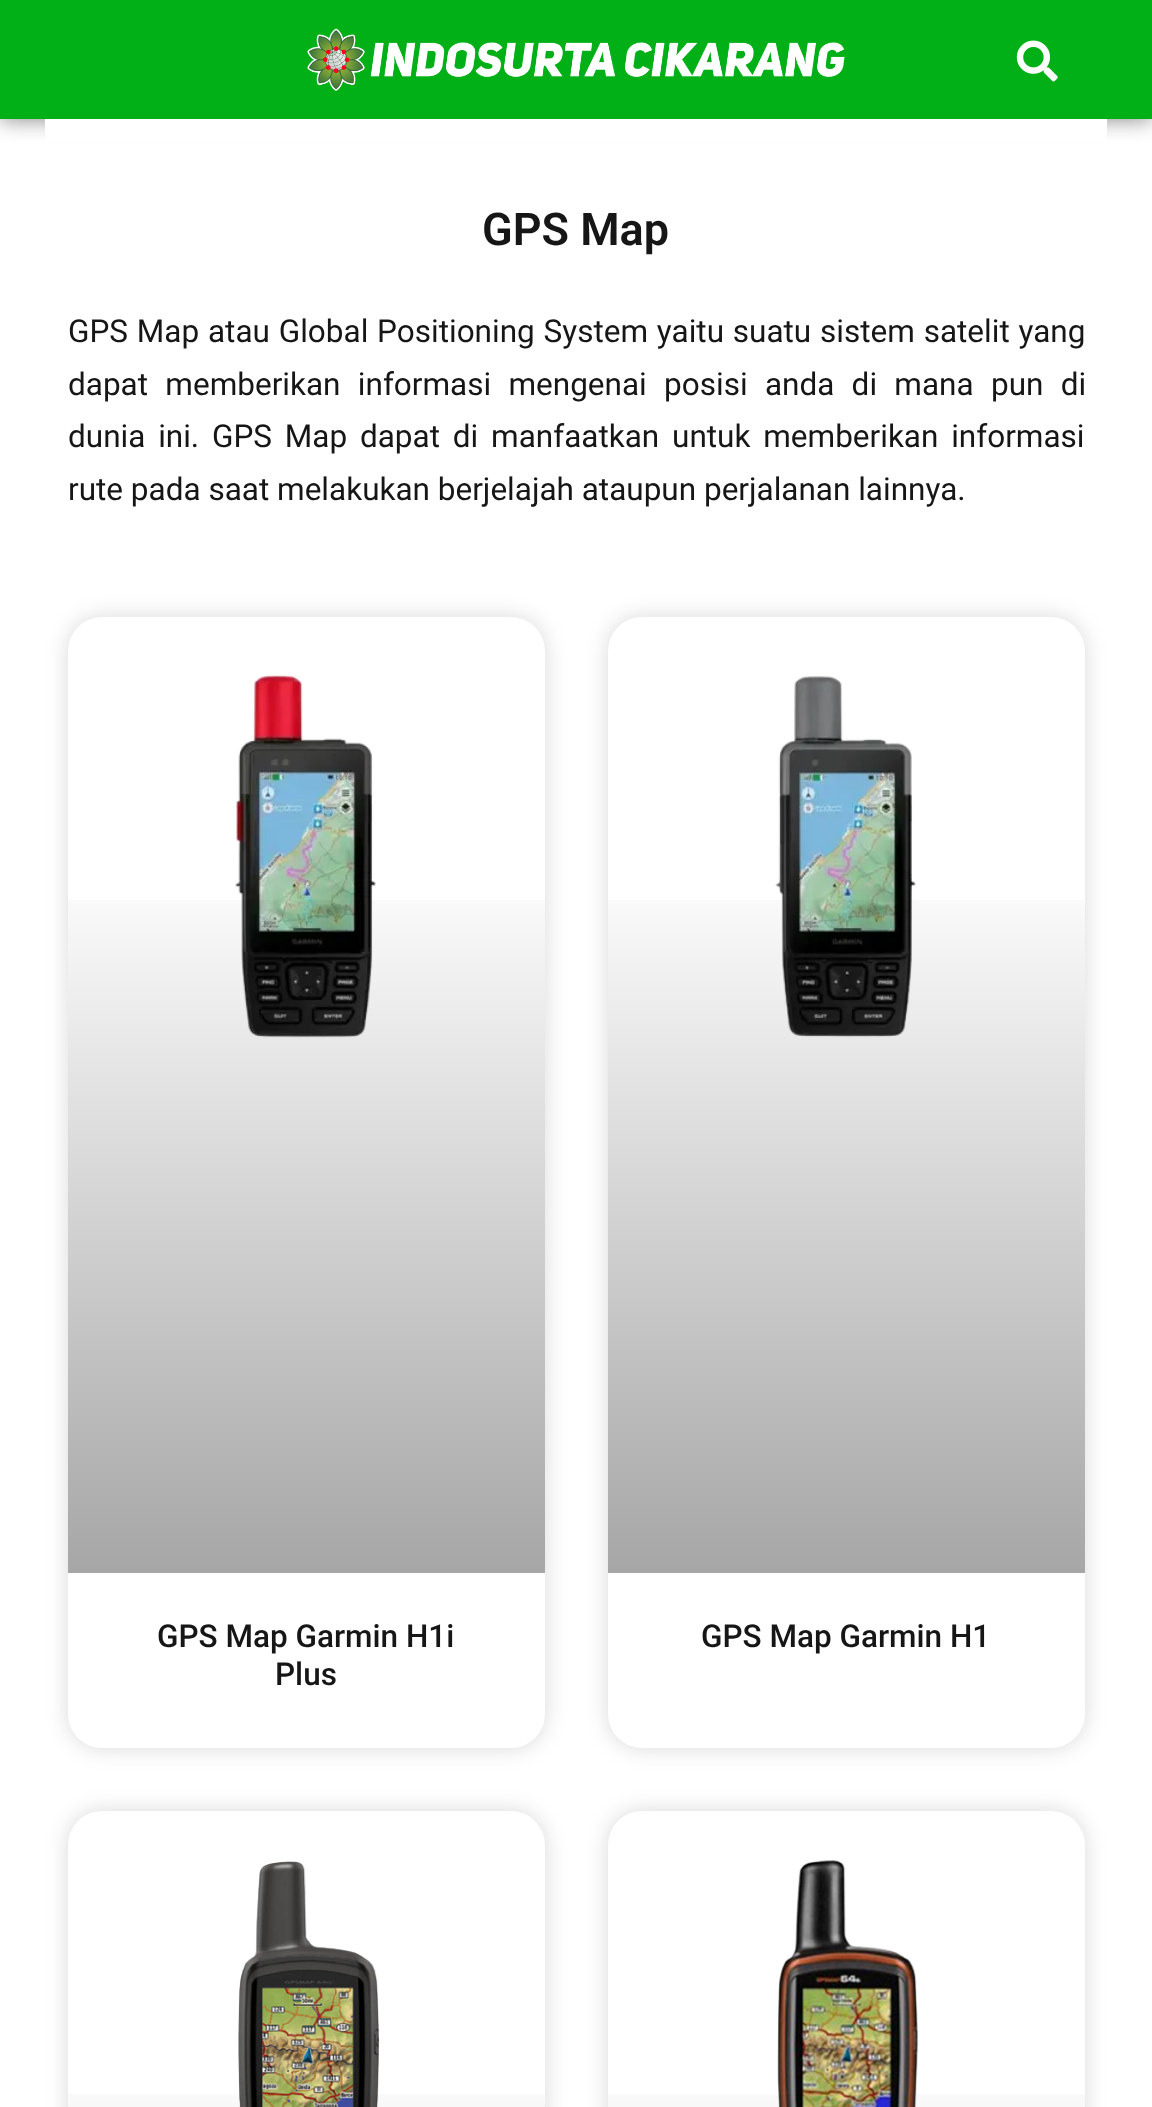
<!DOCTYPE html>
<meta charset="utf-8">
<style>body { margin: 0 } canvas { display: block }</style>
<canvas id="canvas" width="1152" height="2107"></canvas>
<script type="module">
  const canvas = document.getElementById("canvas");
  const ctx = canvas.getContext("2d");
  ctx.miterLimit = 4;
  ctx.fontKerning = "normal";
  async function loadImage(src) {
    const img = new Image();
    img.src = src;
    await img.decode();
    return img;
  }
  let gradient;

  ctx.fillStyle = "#ffffff";
  ctx.fillRect(0, 0, 1152, 2107);
  ctx.fillStyle = "rgba(0, 0, 0, 0.5)";
  ctx.filter = "blur(11px)";
  ctx.beginPath();
  ctx.rect(0, 0, 1152, 119);
  ctx.fill();
  ctx.filter = "none";
  ctx.fillStyle = "#00b016";
  ctx.fillRect(0, 0, 1152, 119);
  ctx.drawImage(await loadImage("img1.png"), 307, 28, 538, 63);
  ctx.drawImage(await loadImage("img2.png"), 1016, 40, 42, 42);
  ctx.fillStyle = "#ffffff";
  ctx.fillRect(45, 119, 1062, 23);
  ctx.font = "600 45px Roboto";
  ctx.fillStyle = "#161616";
  ctx.fillText("GPS Map", 482, 245);
  ctx.wordSpacing = "1px";
  ctx.font = "31.5px Roboto";
  ctx.fillText("GPS Map atau Global Positioning System yaitu suatu sistem satelit yang", 68, 342);
  ctx.wordSpacing = "9.5px";
  ctx.fillText("dapat memberikan informasi mengenai posisi anda di mana pun di", 68, 395);
  ctx.wordSpacing = "5px";
  ctx.fillText("dunia ini. GPS Map dapat di manfaatkan untuk memberikan informasi", 68, 447);
  ctx.wordSpacing = "0px";
  ctx.fillText("rute pada saat melakukan berjelajah ataupun perjalanan lainnya.", 68, 500);
  ctx.fillStyle = "rgba(0, 0, 0, 0.15)";
  ctx.filter = "blur(11px)";
  ctx.beginPath();
  ctx.roundRect(68, 617, 477, 1131, 34);
  ctx.fill();
  ctx.filter = "none";
  ctx.fillStyle = "#ffffff";
  ctx.beginPath();
  ctx.roundRect(68, 617, 477, 1131, 34);
  ctx.fill();
  ctx.drawImage(await loadImage("img3.png"), 235, 675, 141, 363);
  gradient = ctx.createLinearGradient(306, 1573, 306, 617);
  gradient.addColorStop(0, "rgba(0, 0, 0, 0.35)");
  gradient.addColorStop(0.75, "rgba(0, 0, 0, 0)");
  ctx.fillStyle = gradient;
  ctx.fillRect(68, 900, 477, 673);
  ctx.font = "500 31.5px Roboto";
  ctx.fillStyle = "#161616";
  ctx.fillText("GPS Map Garmin H1i", 157, 1647);
  ctx.fillText("Plus", 275, 1685);
  ctx.fillStyle = "rgba(0, 0, 0, 0.15)";
  ctx.filter = "blur(11px)";
  ctx.beginPath();
  ctx.roundRect(608, 617, 477, 1131, 34);
  ctx.fill();
  ctx.filter = "none";
  ctx.fillStyle = "#ffffff";
  ctx.beginPath();
  ctx.roundRect(608, 617, 477, 1131, 34);
  ctx.fill();
  ctx.drawImage(await loadImage("img4.png"), 775, 676, 141, 362);
  gradient = ctx.createLinearGradient(846, 1573, 846, 617);
  gradient.addColorStop(0, "rgba(0, 0, 0, 0.35)");
  gradient.addColorStop(0.75, "rgba(0, 0, 0, 0)");
  ctx.fillStyle = gradient;
  ctx.fillRect(608, 900, 477, 673);
  ctx.fillStyle = "#161616";
  ctx.fillText("GPS Map Garmin H1", 701, 1647);
  ctx.fillStyle = "rgba(0, 0, 0, 0.15)";
  ctx.filter = "blur(11px)";
  ctx.beginPath();
  ctx.roundRect(68, 1811, 477, 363, 34);
  ctx.fill();
  ctx.filter = "none";
  ctx.fillStyle = "#ffffff";
  ctx.beginPath();
  ctx.roundRect(68, 1811, 477, 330, 34);
  ctx.fill();
  ctx.drawImage(await loadImage("img5.png"), 238, 1861, 142, 246);
  gradient = ctx.createLinearGradient(306, 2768, 306, 1811);
  gradient.addColorStop(0, "rgba(0, 0, 0, 0.35)");
  gradient.addColorStop(0.75, "rgba(0, 0, 0, 0)");
  ctx.fillStyle = gradient;
  ctx.fillRect(68, 2094, 477, 13);
  ctx.fillStyle = "rgba(0, 0, 0, 0.15)";
  ctx.filter = "blur(11px)";
  ctx.beginPath();
  ctx.roundRect(608, 1811, 477, 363, 34);
  ctx.fill();
  ctx.filter = "none";
  ctx.fillStyle = "#ffffff";
  ctx.beginPath();
  ctx.roundRect(608, 1811, 477, 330, 34);
  ctx.fill();
  ctx.drawImage(await loadImage("img6.png"), 777, 1860, 142, 247);
  gradient = ctx.createLinearGradient(846, 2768, 846, 1811);
  gradient.addColorStop(0, "rgba(0, 0, 0, 0.35)");
  gradient.addColorStop(0.75, "rgba(0, 0, 0, 0)");
  ctx.fillStyle = gradient;
  ctx.fillRect(608, 2094, 477, 13);
</script>
